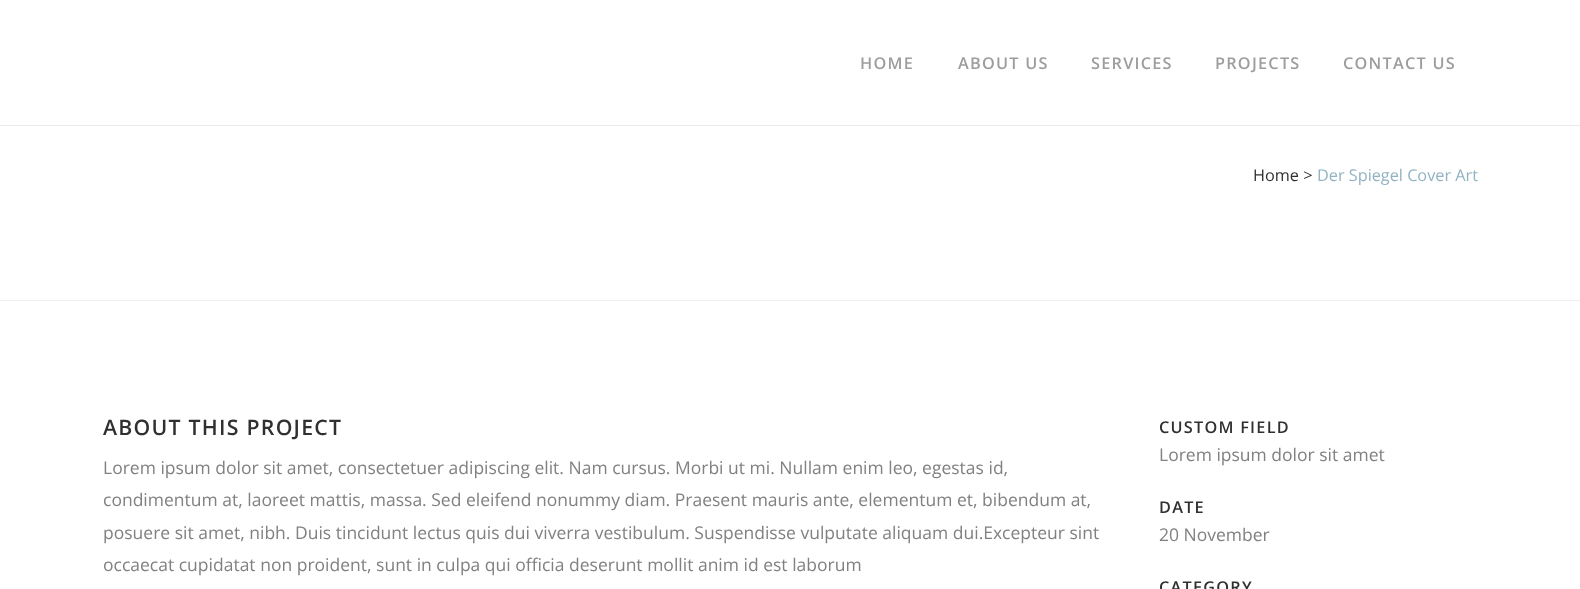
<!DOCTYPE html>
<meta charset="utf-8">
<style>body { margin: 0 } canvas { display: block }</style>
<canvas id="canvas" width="1580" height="589"></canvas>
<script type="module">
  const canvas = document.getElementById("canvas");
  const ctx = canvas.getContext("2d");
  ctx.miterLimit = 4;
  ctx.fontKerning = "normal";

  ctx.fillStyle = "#ffffff";
  ctx.fillRect(0, 0, 1580, 589);
  ctx.fillStyle = "#eaeaea";
  ctx.fillRect(0, 125, 1580, 1);
  ctx.letterSpacing = "1.25px";
  ctx.font = "600 16.25px Open Sans";
  ctx.fillStyle = "#9d9d9d";
  ctx.fillText("HOME", 860, 69);
  ctx.fillText("ABOUT US", 958, 69);
  ctx.fillText("SERVICES", 1091, 69);
  ctx.fillText("PROJECTS", 1215, 69);
  ctx.fillText("CONTACT US", 1343, 69);
  ctx.fillStyle = "#eeeeee";
  ctx.fillRect(0, 300, 1580, 1);
  ctx.letterSpacing = "0px";
  ctx.font = "16.25px Open Sans";
  ctx.fillStyle = "#303030";
  ctx.fillText("Home >", 1253, 181);
  ctx.fillStyle = "#91b2c3";
  ctx.fillText("Der Spiegel Cover Art", 1317, 181);
  ctx.letterSpacing = "1.25px";
  ctx.font = "600 21.25px Open Sans";
  ctx.fillStyle = "#303030";
  ctx.fillText("ABOUT THIS PROJECT", 103, 435);
  ctx.letterSpacing = "0px";
  ctx.font = "17.5px Open Sans";
  ctx.fillStyle = "#818181";
  ctx.fillText("Lorem ipsum dolor sit amet, consectetuer adipiscing elit. Nam cursus. Morbi ut mi. Nullam enim leo, egestas id,", 103, 474);
  ctx.fillText("condimentum at, laoreet mattis, massa. Sed eleifend nonummy diam. Praesent mauris ante, elementum et, bibendum at,", 103, 506);
  ctx.fillText("posuere sit amet, nibh. Duis tincidunt lectus quis dui viverra vestibulum. Suspendisse vulputate aliquam dui.Excepteur sint", 103, 539);
  ctx.fillText("occaecat cupidatat non proident, sunt in culpa qui officia deserunt mollit anim id est laborum", 103, 571);
  ctx.letterSpacing = "1.25px";
  ctx.font = "600 16.25px Open Sans";
  ctx.fillStyle = "#303030";
  ctx.fillText("CUSTOM FIELD", 1159, 433);
  ctx.letterSpacing = "0px";
  ctx.font = "17.5px Open Sans";
  ctx.fillStyle = "#818181";
  ctx.fillText("Lorem ipsum dolor sit amet", 1159, 461);
  ctx.letterSpacing = "1.25px";
  ctx.font = "600 16.25px Open Sans";
  ctx.fillStyle = "#303030";
  ctx.fillText("DATE", 1159, 513);
  ctx.letterSpacing = "0px";
  ctx.font = "17.5px Open Sans";
  ctx.fillStyle = "#818181";
  ctx.fillText("20 November", 1159, 541);
  ctx.letterSpacing = "1.25px";
  ctx.font = "600 16.25px Open Sans";
  ctx.fillStyle = "#303030";
  ctx.fillText("CATEGORY", 1159, 593);
</script>
